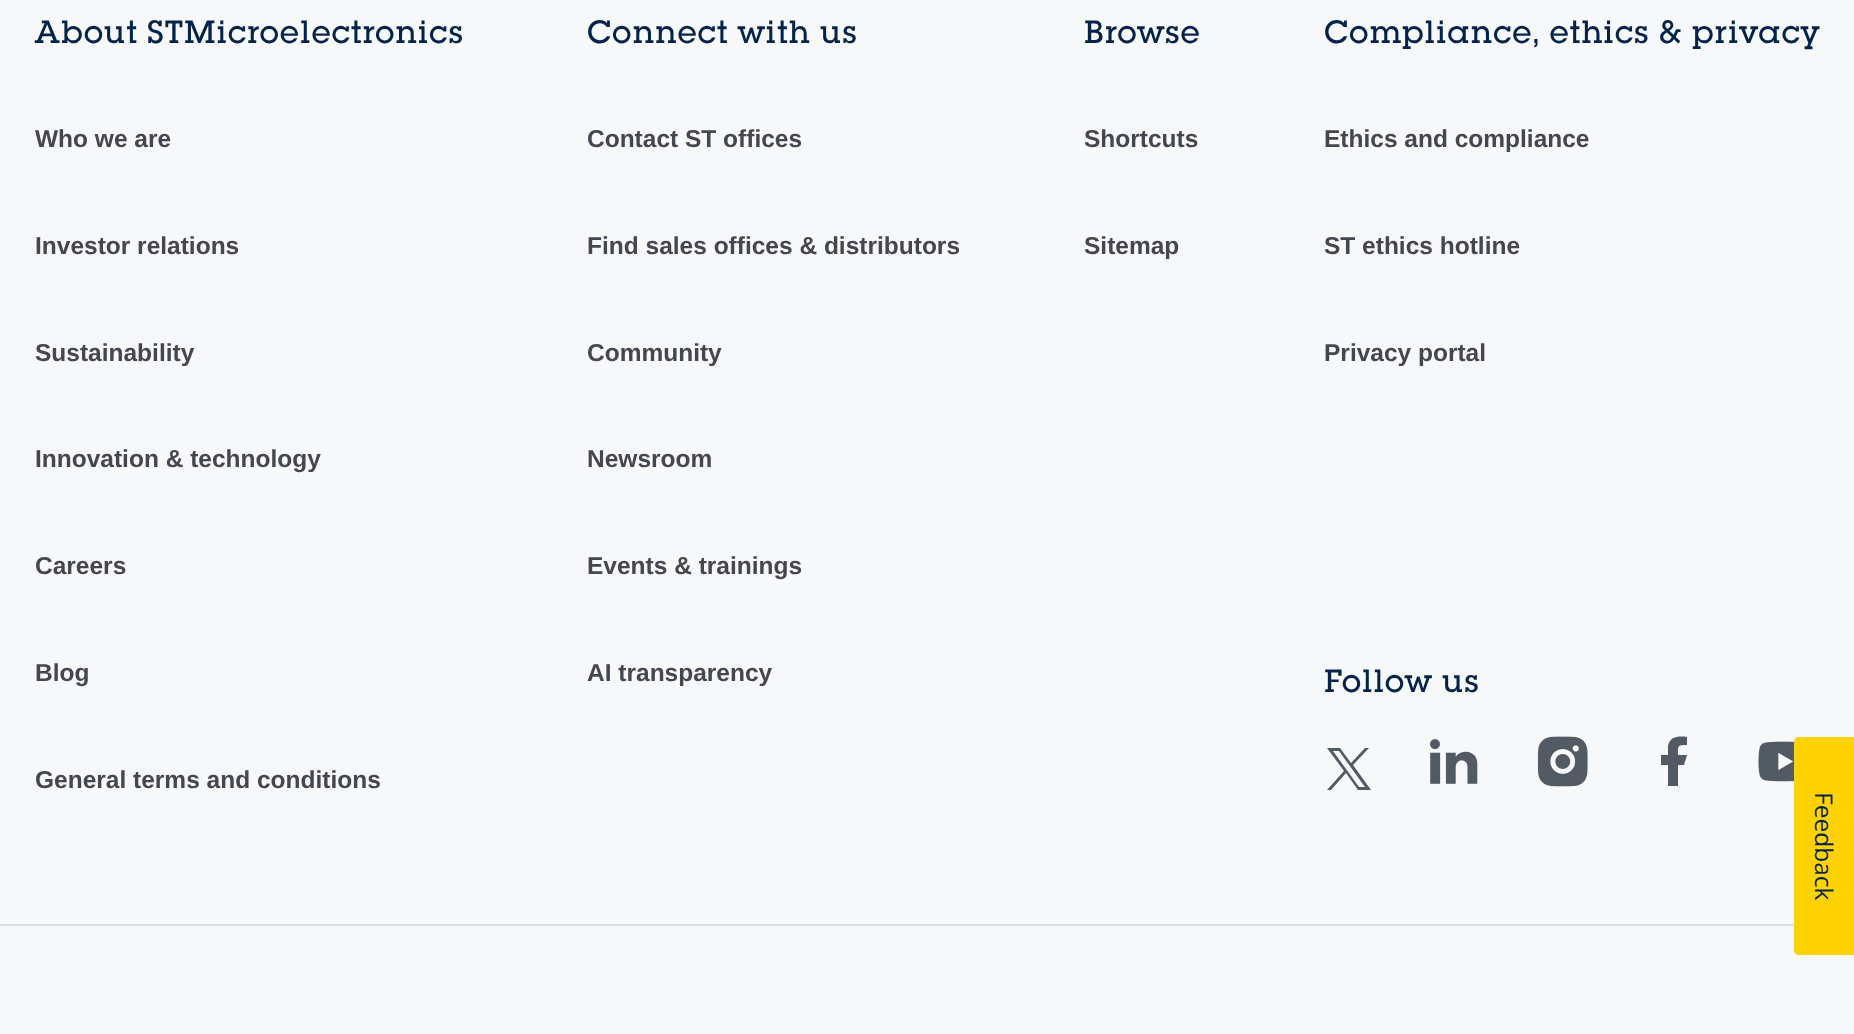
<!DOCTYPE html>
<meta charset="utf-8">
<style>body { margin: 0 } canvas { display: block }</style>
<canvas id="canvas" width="1854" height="1034"></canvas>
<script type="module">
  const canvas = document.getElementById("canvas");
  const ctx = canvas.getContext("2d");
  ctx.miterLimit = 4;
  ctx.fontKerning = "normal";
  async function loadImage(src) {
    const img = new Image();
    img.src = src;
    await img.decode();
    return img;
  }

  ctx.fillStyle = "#f7f8fa";
  ctx.fillRect(0, 0, 1854, 1034);
  ctx.letterSpacing = "0.9px";
  ctx.font = "500 31.5px 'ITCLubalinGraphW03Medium'";
  ctx.fillStyle = "#03234b";
  ctx.fillText("About STMicroelectronics", 35, 43);
  ctx.letterSpacing = "0px";
  ctx.font = "bold 24.5px Liberation Sans";
  ctx.fillStyle = "#464650";
  ctx.fillText("Who we are", 35, 147);
  ctx.fillText("Investor relations", 35, 254);
  ctx.fillText("Sustainability", 35, 361);
  ctx.fillText("Innovation & technology", 35, 467);
  ctx.fillText("Careers", 35, 574);
  ctx.fillText("Blog", 35, 681);
  ctx.fillText("General terms and conditions", 35, 788);
  ctx.letterSpacing = "0.9px";
  ctx.font = "500 31.5px 'ITCLubalinGraphW03Medium'";
  ctx.fillStyle = "#03234b";
  ctx.fillText("Connect with us", 587, 43);
  ctx.letterSpacing = "0px";
  ctx.font = "bold 24.5px Liberation Sans";
  ctx.fillStyle = "#464650";
  ctx.fillText("Contact ST offices", 587, 147);
  ctx.fillText("Find sales offices & distributors", 587, 254);
  ctx.fillText("Community", 587, 361);
  ctx.fillText("Newsroom", 587, 467);
  ctx.fillText("Events & trainings", 587, 574);
  ctx.fillText("AI transparency", 587, 681);
  ctx.letterSpacing = "0.9px";
  ctx.font = "500 31.5px 'ITCLubalinGraphW03Medium'";
  ctx.fillStyle = "#03234b";
  ctx.fillText("Browse", 1084, 43);
  ctx.letterSpacing = "0px";
  ctx.font = "bold 24.5px Liberation Sans";
  ctx.fillStyle = "#464650";
  ctx.fillText("Shortcuts", 1084, 147);
  ctx.fillText("Sitemap", 1084, 254);
  ctx.letterSpacing = "0.9px";
  ctx.font = "500 31.5px 'ITCLubalinGraphW03Medium'";
  ctx.fillStyle = "#03234b";
  ctx.fillText("Compliance, ethics & privacy", 1324, 43);
  ctx.letterSpacing = "0px";
  ctx.font = "bold 24.5px Liberation Sans";
  ctx.fillStyle = "#464650";
  ctx.fillText("Ethics and compliance", 1324, 147);
  ctx.fillText("ST ethics hotline", 1324, 254);
  ctx.fillText("Privacy portal", 1324, 361);
  ctx.letterSpacing = "0.9px";
  ctx.font = "500 31.5px 'ITCLubalinGraphW03Medium'";
  ctx.fillStyle = "#03234b";
  ctx.fillText("Follow us", 1324, 692);
  ctx.fillStyle = "#525a63";
  ctx.beginPath();
  ctx.moveTo(1327, 748);
  ctx.lineTo(1344, 771);
  ctx.lineTo(1327, 790);
  ctx.lineTo(1331, 790);
  ctx.lineTo(1346, 773);
  ctx.lineTo(1358, 790);
  ctx.lineTo(1371, 790);
  ctx.lineTo(1353, 765);
  ctx.lineTo(1369, 748);
  ctx.lineTo(1365, 748);
  ctx.lineTo(1351, 763);
  ctx.lineTo(1340, 748);
  ctx.closePath();
  ctx.moveTo(1333, 751);
  ctx.lineTo(1339, 751);
  ctx.lineTo(1365, 787);
  ctx.lineTo(1359, 787);
  ctx.closePath();
  ctx.fill();
  ctx.drawImage(await loadImage("img1.png"), 1430, 739, 48, 45);
  ctx.drawImage(await loadImage("img2.png"), 1537, 736, 51, 51);
  ctx.beginPath();
  ctx.moveTo(1678, 765);
  ctx.lineTo(1684, 765);
  ctx.lineTo(1687, 755);
  ctx.lineTo(1678, 755);
  ctx.bezierCurveTo(1678, 746, 1677, 745, 1687, 745);
  ctx.lineTo(1687, 737);
  ctx.bezierCurveTo(1679, 736, 1670, 736, 1668, 746);
  ctx.lineTo(1668, 755);
  ctx.lineTo(1661, 755);
  ctx.lineTo(1661, 765);
  ctx.lineTo(1668, 765);
  ctx.lineTo(1668, 786);
  ctx.lineTo(1678, 786);
  ctx.closePath();
  ctx.fill();
  ctx.drawImage(await loadImage("img3.png"), 1758, 741, 37, 41);
  ctx.fillStyle = "#dbdee2";
  ctx.fillRect(0, 924, 1794, 2);
  ctx.fillStyle = "#ffd200";
  ctx.beginPath();
  ctx.moveTo(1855, 737);
  ctx.lineTo(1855, 955);
  ctx.lineTo(1799, 955);
  ctx.bezierCurveTo(1796, 955, 1794, 953, 1794, 950);
  ctx.lineTo(1794, 742);
  ctx.bezierCurveTo(1794, 739, 1796, 737, 1799, 737);
  ctx.closePath();
  ctx.fill();
  ctx.letterSpacing = "0px";
  ctx.font = "24.5px Open Sans";
  ctx.fillStyle = "#03234b";
  ctx.save();
  ctx.translate(1815, 792);
  ctx.rotate(90 * Math.PI / 180);
  ctx.fillText("Feedback", 0, 0);
  ctx.restore();
</script>
